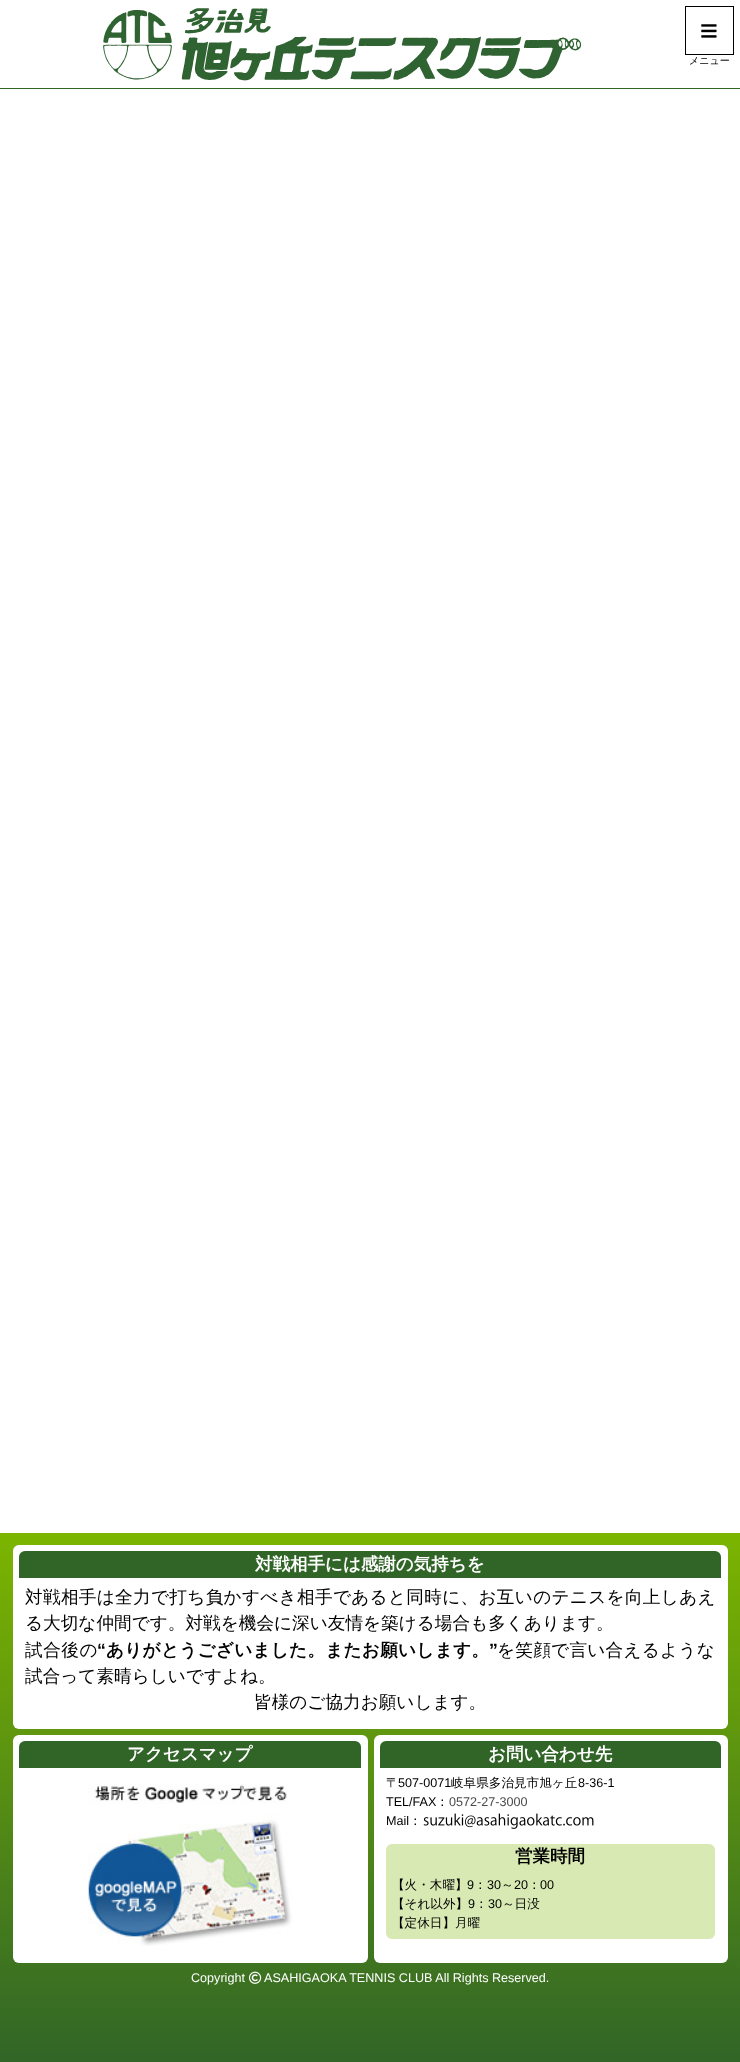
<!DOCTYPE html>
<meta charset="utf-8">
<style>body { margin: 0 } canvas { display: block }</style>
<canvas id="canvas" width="740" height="2062"></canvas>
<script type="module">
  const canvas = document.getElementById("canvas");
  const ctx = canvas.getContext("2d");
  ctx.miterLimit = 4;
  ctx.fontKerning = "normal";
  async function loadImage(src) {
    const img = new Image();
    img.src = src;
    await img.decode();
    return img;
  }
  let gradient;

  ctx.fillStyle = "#ffffff";
  ctx.fillRect(0, 0, 740, 2062);
  ctx.fillStyle = "#306527";
  ctx.fillRect(0, 88, 740, 1);
  ctx.drawImage(await loadImage("img1.png"), 103, 8, 479, 73);
  ctx.strokeStyle = "#000000";
  ctx.strokeRect(685.5, 6.5, 48, 48);
  ctx.drawImage(await loadImage("img2.png"), 701, 24, 16, 14);
  ctx.font = "500 10px WenQuanYi Zen Hei";
  ctx.fillStyle = "#000000";
  ctx.fillText("メニュー", 689, 64);
  gradient = ctx.createLinearGradient(370, 1533, 370, 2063);
  gradient.addColorStop(0, "#7cb500");
  gradient.addColorStop(1, "#306527");
  ctx.fillStyle = gradient;
  ctx.fillRect(0, 1533, 740, 529);
  ctx.fillStyle = "#ffffff";
  ctx.beginPath();
  ctx.roundRect(13, 1545, 715, 184, 6);
  ctx.fill();
  ctx.fillStyle = "#306527";
  ctx.beginPath();
  ctx.roundRect(19, 1551, 702, 27, [6, 6, 0, 0]);
  ctx.fill();
  ctx.font = "bold 17.5px WenQuanYi Zen Hei";
  ctx.fillStyle = "#ffffff";
  ctx.fillText("対戦相手には感謝の気持ちを", 255, 1570);
  ctx.letterSpacing = "0.3px";
  ctx.font = "500 17.65px WenQuanYi Zen Hei";
  ctx.fillStyle = "#000000";
  ctx.fillText("対戦相手は全力で打ち負かすべき相手であると同時に、お互いのテニスを向上しあえ", 25, 1603);
  ctx.letterSpacing = "0px";
  ctx.fillText("る大切な仲間です。対戦を機会に深い友情を築ける場合も多くあります。", 25, 1629);
  ctx.letterSpacing = "0.5px";
  ctx.fillText("試合後の", 25, 1656);
  ctx.letterSpacing = "0.25px";
  ctx.font = "bold 17.65px Liberation Sans";
  ctx.fillText("“", 97, 1656);
  ctx.font = "bold 17.65px WenQuanYi Zen Hei";
  ctx.fillText("ありがとうございました。またお願いします。", 106, 1656);
  ctx.font = "bold 17.65px Liberation Sans";
  ctx.fillText("”", 489, 1656);
  ctx.font = "500 17.65px WenQuanYi Zen Hei";
  ctx.fillText("を笑顔で言い合えるような", 497, 1656);
  ctx.letterSpacing = "0px";
  ctx.fillText("試合って素晴らしいですよね。", 25, 1682);
  ctx.fillText("皆様のご協力お願いします。", 254, 1708);
  ctx.fillStyle = "#ffffff";
  ctx.beginPath();
  ctx.roundRect(13, 1735, 355, 228, 6);
  ctx.fill();
  ctx.fillStyle = "#306527";
  ctx.beginPath();
  ctx.roundRect(19, 1741, 342, 27, [6, 6, 0, 0]);
  ctx.fill();
  ctx.font = "bold 17.5px WenQuanYi Zen Hei";
  ctx.fillStyle = "#ffffff";
  ctx.fillText("アクセスマップ", 127, 1760);
  ctx.drawImage(await loadImage("img3.png"), 87, 1784, 205, 162);
  ctx.beginPath();
  ctx.roundRect(374, 1735, 354, 228, 6);
  ctx.fill();
  ctx.fillStyle = "#306527";
  ctx.beginPath();
  ctx.roundRect(380, 1741, 341, 27, [6, 6, 0, 0]);
  ctx.fill();
  ctx.fillStyle = "#ffffff";
  ctx.fillText("お問い合わせ先", 488, 1760);
  ctx.font = "500 12.6px WenQuanYi Zen Hei";
  ctx.fillStyle = "#000000";
  ctx.fillText("〒", 386, 1787);
  ctx.font = "12.6px Liberation Sans";
  ctx.fillText("507-0071", 398, 1787);
  ctx.font = "500 12.6px WenQuanYi Zen Hei";
  ctx.fillText("岐阜県多治見市旭ヶ丘", 451, 1787);
  ctx.font = "12.6px Liberation Sans";
  ctx.fillText("8-36-1", 578, 1787);
  ctx.fillText("TEL/FAX", 386, 1806);
  ctx.font = "500 12.6px WenQuanYi Zen Hei";
  ctx.fillText("：", 436, 1806);
  ctx.font = "12.6px Liberation Sans";
  ctx.fillStyle = "#4a4a4a";
  ctx.fillText("0572-27-3000", 449, 1806);
  ctx.fillStyle = "#000000";
  ctx.fillText("Mail", 386, 1825);
  ctx.font = "500 12.6px WenQuanYi Zen Hei";
  ctx.fillText("：", 409, 1825);
  ctx.drawImage(await loadImage("img4.png"), 423, 1813, 171, 16);
  ctx.fillStyle = "#d8e9b3";
  ctx.beginPath();
  ctx.roundRect(386, 1844, 329, 95, 6);
  ctx.fill();
  ctx.font = "bold 17.5px WenQuanYi Zen Hei";
  ctx.fillStyle = "#000000";
  ctx.fillText("営業時間", 515, 1862);
  ctx.font = "500 12.6px WenQuanYi Zen Hei";
  ctx.fillText("【火・木曜】", 392, 1889);
  ctx.font = "12.6px Liberation Sans";
  ctx.fillText("9", 467, 1889);
  ctx.font = "500 12.6px WenQuanYi Zen Hei";
  ctx.fillText("：", 474, 1889);
  ctx.font = "12.6px Liberation Sans";
  ctx.fillText("30", 487, 1889);
  ctx.font = "500 12.6px WenQuanYi Zen Hei";
  ctx.fillText("～", 501, 1889);
  ctx.font = "12.6px Liberation Sans";
  ctx.fillText("20", 514, 1889);
  ctx.font = "500 12.6px WenQuanYi Zen Hei";
  ctx.fillText("：", 528, 1889);
  ctx.font = "12.6px Liberation Sans";
  ctx.fillText("00", 540, 1889);
  ctx.font = "500 12.6px WenQuanYi Zen Hei";
  ctx.fillText("【それ以外】", 392, 1908);
  ctx.font = "12.6px Liberation Sans";
  ctx.fillText("9", 468, 1908);
  ctx.font = "500 12.6px WenQuanYi Zen Hei";
  ctx.fillText("：", 475, 1908);
  ctx.font = "12.6px Liberation Sans";
  ctx.fillText("30", 488, 1908);
  ctx.font = "500 12.6px WenQuanYi Zen Hei";
  ctx.fillText("～日没", 502, 1908);
  ctx.fillText("【定休日】月曜", 392, 1927);
  ctx.font = "12.6px Liberation Sans";
  ctx.fillStyle = "#ffffff";
  ctx.fillText("Copyright", 191, 1982);
  ctx.drawImage(await loadImage("img5.png"), 248, 1971, 14, 13);
  ctx.fillText("ASAHIGAOKA TENNIS CLUB All Rights Reserved.", 264, 1982);
</script>
